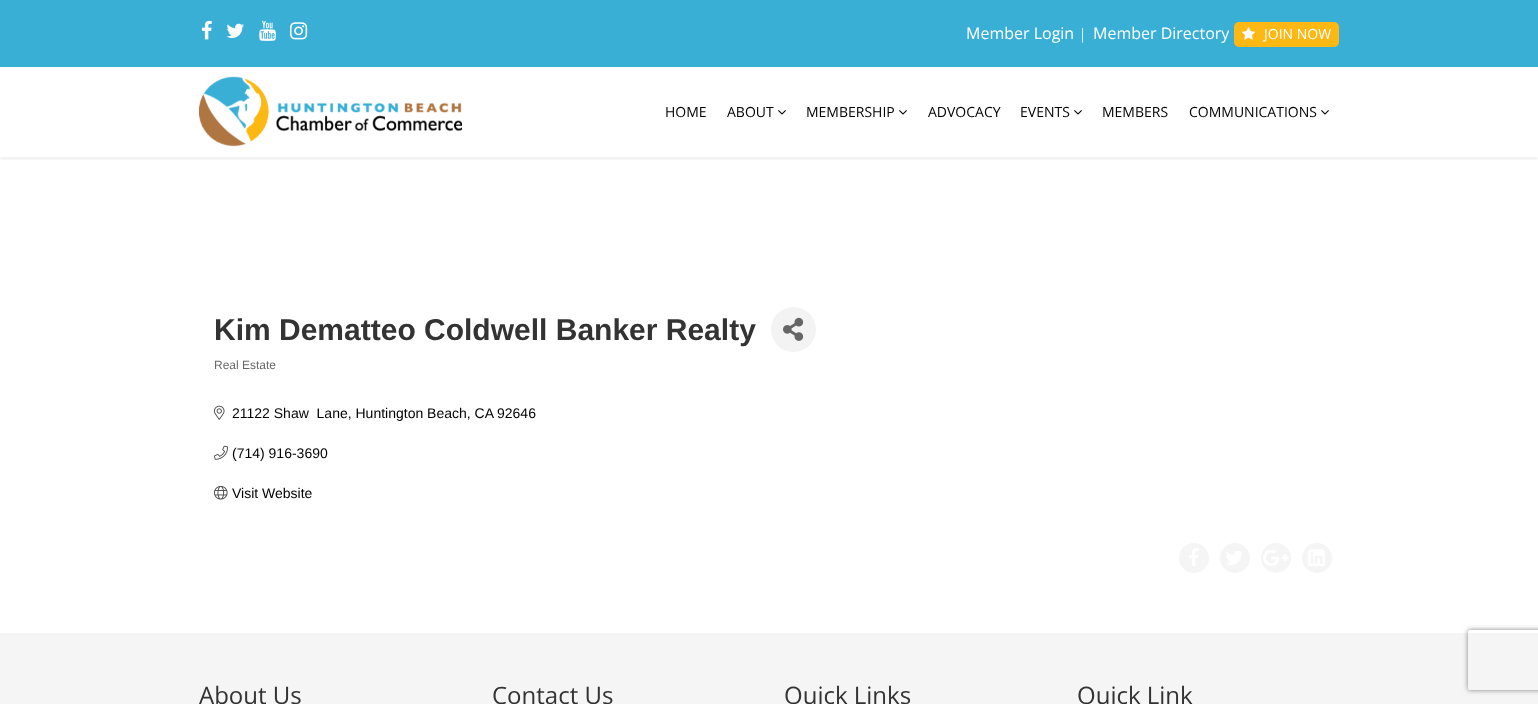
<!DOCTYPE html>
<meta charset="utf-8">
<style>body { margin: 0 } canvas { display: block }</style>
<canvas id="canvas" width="1538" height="704"></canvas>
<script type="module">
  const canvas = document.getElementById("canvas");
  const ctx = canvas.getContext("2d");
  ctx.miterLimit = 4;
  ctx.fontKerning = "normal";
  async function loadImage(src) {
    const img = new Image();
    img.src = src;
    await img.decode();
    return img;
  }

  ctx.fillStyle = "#ffffff";
  ctx.fillRect(0, 0, 1538, 704);
  ctx.fillStyle = "#3aafd6";
  ctx.fillRect(0, 0, 1538, 67);
  ctx.drawImage(await loadImage("img1.png"), 202, 20, 10, 20);
  ctx.drawImage(await loadImage("img2.png"), 226, 23, 18, 15);
  ctx.drawImage(await loadImage("img3.png"), 259, 20, 17, 21);
  ctx.drawImage(await loadImage("img4.png"), 290, 22, 18, 18);
  ctx.font = "16px Open Sans";
  ctx.fillStyle = "#ffffff";
  ctx.fillText("Member Login", 966, 39);
  ctx.font = "16px Liberation Serif";
  ctx.fillText("|", 1081, 39);
  ctx.font = "16px Open Sans";
  ctx.fillText("Member Directory", 1093, 39);
  ctx.fillStyle = "#fdb813";
  ctx.beginPath();
  ctx.roundRect(1234, 22, 105, 25, 5);
  ctx.fill();
  ctx.drawImage(await loadImage("img5.png"), 1242, 27, 13, 13);
  ctx.font = "14px Open Sans";
  ctx.fillStyle = "#ffffff";
  ctx.fillText("JOIN NOW", 1264, 39);
  ctx.save();
  ctx.beginPath();
  ctx.rect(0, 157, 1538, 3);
  ctx.clip();
  ctx.fillStyle = "rgba(0, 0, 0, 0.05)";
  ctx.filter = "blur(1.5px)";
  ctx.beginPath();
  ctx.rect(0, 70, 1538, 90);
  ctx.fill();
  ctx.filter = "none";
  ctx.restore();
  ctx.drawImage(await loadImage("img6.png"), 199, 76, 263, 71);
  ctx.fillStyle = "#000000";
  ctx.fillText("HOME", 665, 117);
  ctx.fillText("ABOUT", 727, 117);
  ctx.drawImage(await loadImage("img7.png"), 778, 110, 8, 5);
  ctx.fillText("MEMBERSHIP", 806, 117);
  ctx.drawImage(await loadImage("img7.png"), 899, 110, 8, 5);
  ctx.fillText("ADVOCACY", 928, 117);
  ctx.fillText("EVENTS", 1020, 117);
  ctx.drawImage(await loadImage("img7.png"), 1074, 110, 8, 5);
  ctx.fillText("MEMBERS", 1102, 117);
  ctx.fillText("COMMUNICATIONS", 1189, 117);
  ctx.drawImage(await loadImage("img7.png"), 1321, 110, 8, 5);
  ctx.font = "bold 30px Liberation Sans";
  ctx.fillStyle = "#333333";
  ctx.fillText("Kim Dematteo Coldwell Banker Realty", 214, 340);
  ctx.fillStyle = "#f3f3f3";
  ctx.beginPath();
  ctx.arc(793.5, 329.5, 22.5, 0, Math.PI * 2);
  ctx.fill();
  ctx.drawImage(await loadImage("img8.png"), 783, 317, 21, 24);
  ctx.font = "12px Liberation Sans";
  ctx.fillStyle = "#696969";
  ctx.fillText("Real Estate", 214, 369);
  ctx.drawImage(await loadImage("img9.png"), 214, 405, 11, 15);
  ctx.font = "14px Liberation Sans";
  ctx.fillStyle = "#000000";
  ctx.fillText("21122 Shaw  Lane, Huntington Beach, CA", 232, 418);
  ctx.fillText("92646", 497, 418);
  ctx.drawImage(await loadImage("img10.png"), 214, 445, 14, 15);
  ctx.fillText("(714) 916-3690", 232, 458);
  ctx.drawImage(await loadImage("img11.png"), 214, 486, 14, 14);
  ctx.fillText("Visit Website", 232, 498);
  ctx.fillStyle = "#f5f5f5";
  ctx.beginPath();
  ctx.arc(1194, 558, 15, 0, Math.PI * 2);
  ctx.fill();
  ctx.drawImage(await loadImage("img12.png"), 1189, 548, 10, 18);
  ctx.beginPath();
  ctx.arc(1235, 558, 15, 0, Math.PI * 2);
  ctx.fill();
  ctx.drawImage(await loadImage("img13.png"), 1226, 551, 16, 14);
  ctx.beginPath();
  ctx.arc(1276, 558, 15, 0, Math.PI * 2);
  ctx.fill();
  ctx.drawImage(await loadImage("img14.png"), 1263, 550, 26, 16);
  ctx.beginPath();
  ctx.arc(1317, 558, 15, 0, Math.PI * 2);
  ctx.fill();
  ctx.drawImage(await loadImage("img15.png"), 1308, 549, 17, 17);
  ctx.fillRect(0, 633, 1538, 71);
  ctx.font = "24px Open Sans";
  ctx.fillStyle = "#333333";
  ctx.fillText("About Us", 199, 704);
  ctx.fillText("Contact Us", 492, 704);
  ctx.fillText("Quick Links", 784, 704);
  ctx.fillText("Quick Link", 1077, 704);
  ctx.save();
  ctx.beginPath();
  ctx.moveTo(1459, 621);
  ctx.lineTo(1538, 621);
  ctx.lineTo(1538, 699);
  ctx.lineTo(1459, 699);
  ctx.closePath();
  ctx.moveTo(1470, 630);
  ctx.lineTo(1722, 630);
  ctx.bezierCurveTo(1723, 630, 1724, 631, 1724, 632);
  ctx.lineTo(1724, 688);
  ctx.bezierCurveTo(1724, 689, 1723, 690, 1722, 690);
  ctx.lineTo(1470, 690);
  ctx.bezierCurveTo(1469, 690, 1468, 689, 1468, 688);
  ctx.lineTo(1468, 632);
  ctx.bezierCurveTo(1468, 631, 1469, 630, 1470, 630);
  ctx.closePath();
  ctx.clip("evenodd");
  ctx.fillStyle = "#808080";
  ctx.filter = "blur(2.5px)";
  ctx.beginPath();
  ctx.roundRect(1468, 630, 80, 60, 2);
  ctx.fill();
  ctx.filter = "none";
  ctx.restore();
</script>
